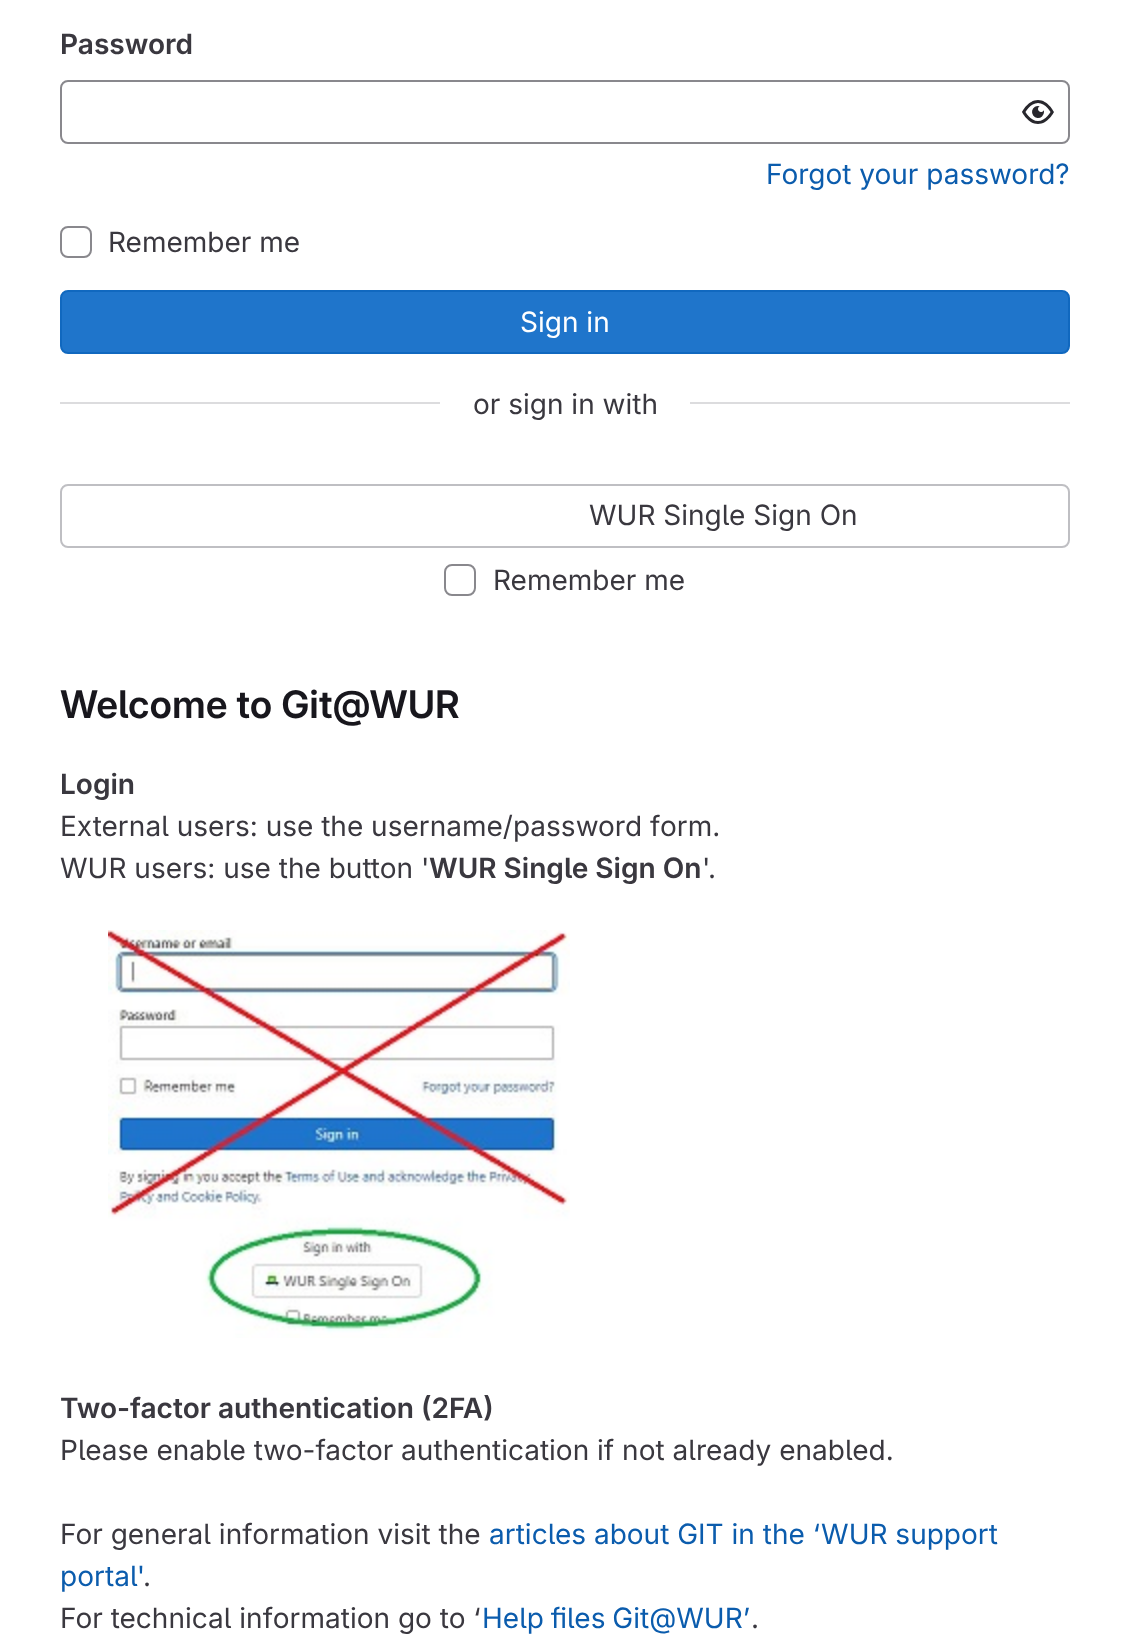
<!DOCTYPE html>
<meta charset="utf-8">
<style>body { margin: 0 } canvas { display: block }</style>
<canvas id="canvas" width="1129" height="1646"></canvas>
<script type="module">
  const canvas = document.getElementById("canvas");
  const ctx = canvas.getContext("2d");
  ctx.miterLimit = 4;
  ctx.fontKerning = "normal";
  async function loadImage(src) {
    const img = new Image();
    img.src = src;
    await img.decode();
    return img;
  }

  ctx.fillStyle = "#ffffff";
  ctx.fillRect(0, 0, 1129, 1646);
  ctx.font = "600 28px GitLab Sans";
  ctx.fillStyle = "#3a383f";
  ctx.fillText("Password", 60, 54);
  ctx.beginPath();
  ctx.roundRect(61, 81, 1008, 62, 7);
  ctx.strokeStyle = "#89888d";
  ctx.lineWidth = 2;
  ctx.stroke();
  ctx.drawImage(await loadImage("img1.png"), 1022, 100, 32, 24);
  ctx.font = "28px GitLab Sans";
  ctx.fillStyle = "#0b5cad";
  ctx.fillText("Forgot your password?", 766, 184);
  ctx.beginPath();
  ctx.roundRect(61, 227, 30, 30, 7);
  ctx.stroke();
  ctx.fillStyle = "#3a383f";
  ctx.fillText("Remember me", 108, 252);
  ctx.fillStyle = "#1f75cb";
  ctx.beginPath();
  ctx.roundRect(61, 291, 1008, 62, 7);
  ctx.fill();
  ctx.strokeStyle = "#1068bf";
  ctx.stroke();
  ctx.fillStyle = "#ffffff";
  ctx.fillText("Sign in", 520, 332);
  ctx.fillStyle = "#dcdcde";
  ctx.fillRect(60, 402, 380, 2);
  ctx.fillStyle = "#3a383f";
  ctx.fillText("or sign in with", 473, 414);
  ctx.fillStyle = "#dcdcde";
  ctx.fillRect(690, 402, 380, 2);
  ctx.beginPath();
  ctx.roundRect(61, 485, 1008, 62, 7);
  ctx.strokeStyle = "#bfbfc3";
  ctx.stroke();
  ctx.fillStyle = "#3a383f";
  ctx.fillText("WUR Single Sign On", 589, 525);
  ctx.beginPath();
  ctx.roundRect(445, 565, 30, 30, 7);
  ctx.strokeStyle = "#89888d";
  ctx.stroke();
  ctx.fillText("Remember me", 493, 590);
  ctx.font = "600 38px 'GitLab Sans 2'";
  ctx.fillStyle = "#18171d";
  ctx.fillText("Welcome to Git@WUR", 60, 718);
  ctx.font = "600 28px GitLab Sans";
  ctx.fillStyle = "#3a383f";
  ctx.fillText("Login", 60, 794);
  ctx.font = "28px GitLab Sans";
  ctx.fillText("External users: use the username/password form.", 60, 836);
  ctx.fillText("WUR users: use the button '", 60, 878);
  ctx.font = "600 28px GitLab Sans";
  ctx.fillText("WUR Single Sign On", 429, 878);
  ctx.font = "28px GitLab Sans";
  ctx.fillText("'.", 702, 878);
  ctx.drawImage(await loadImage("img2.png"), 108, 930, 462, 408);
  ctx.font = "600 28px GitLab Sans";
  ctx.fillText("Two-factor authentication (2FA)", 60, 1418);
  ctx.font = "28px GitLab Sans";
  ctx.fillText("Please enable two-factor authentication if not already enabled.", 60, 1460);
  ctx.fillText("For general information visit the", 60, 1544);
  ctx.fillStyle = "#0b5cad";
  ctx.fillText("articles about GIT in the ‘WUR support", 489, 1544);
  ctx.fillText("portal'", 60, 1586);
  ctx.fillStyle = "#3a383f";
  ctx.fillText(".", 143, 1586);
  ctx.fillText("For technical information go to ‘", 60, 1628);
  ctx.wordSpacing = "-1px";
  ctx.fillStyle = "#0b5cad";
  ctx.fillText("Help files Git@WUR’", 482, 1628);
  ctx.wordSpacing = "0px";
  ctx.fillStyle = "#3a383f";
  ctx.fillText(".", 751, 1628);
</script>
